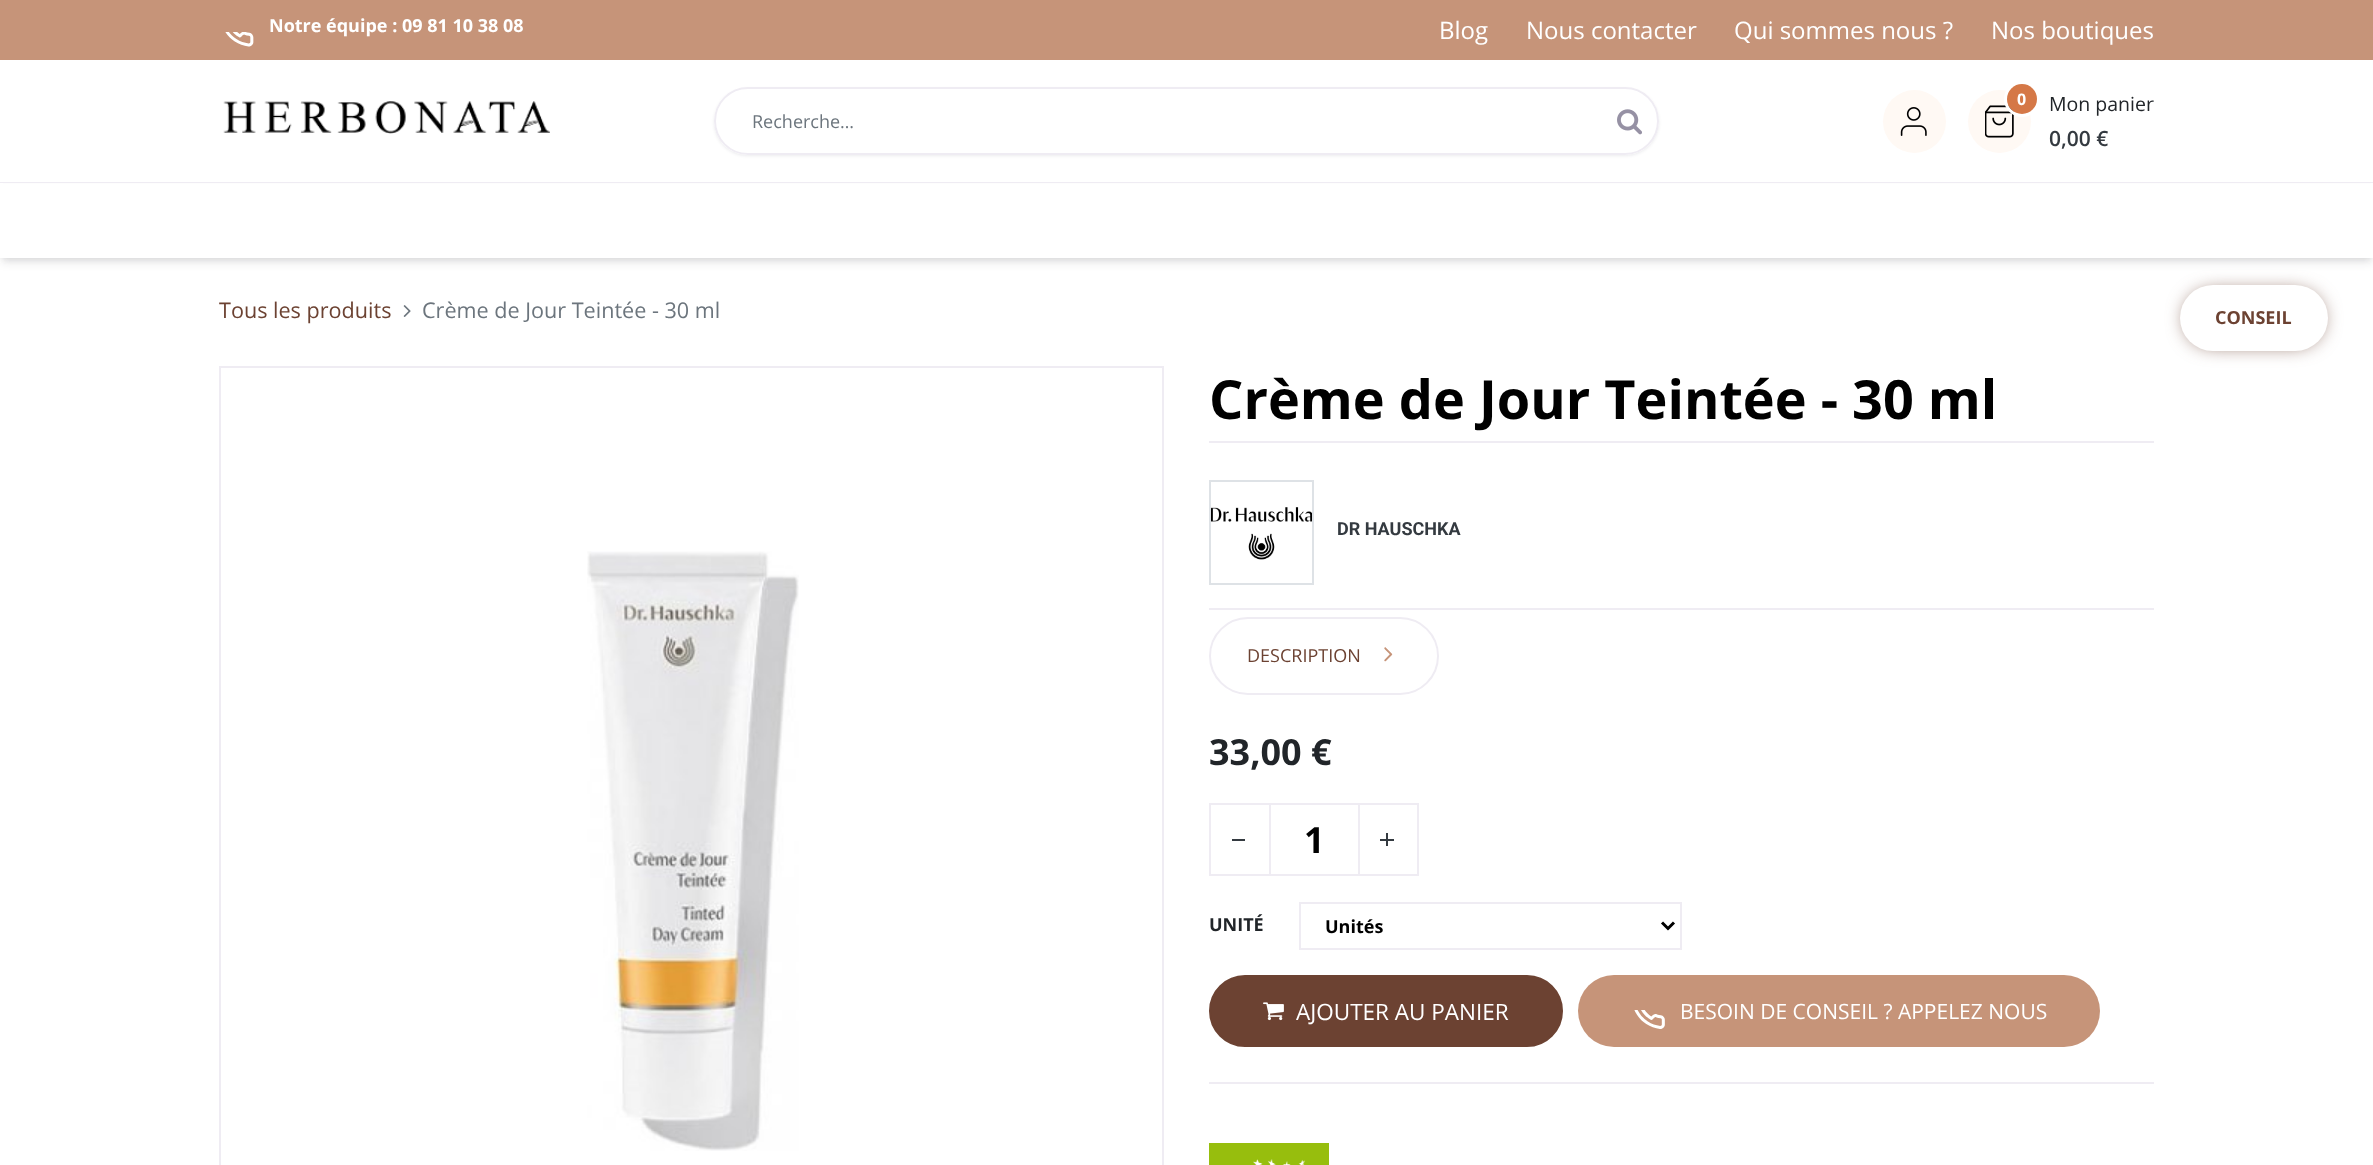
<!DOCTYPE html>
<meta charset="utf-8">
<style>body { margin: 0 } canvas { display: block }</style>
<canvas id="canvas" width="2373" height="1165"></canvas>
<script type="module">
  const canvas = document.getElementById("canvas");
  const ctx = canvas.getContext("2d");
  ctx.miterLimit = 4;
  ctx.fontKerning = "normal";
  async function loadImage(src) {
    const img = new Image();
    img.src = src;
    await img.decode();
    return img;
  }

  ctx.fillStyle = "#ffffff";
  ctx.fillRect(0, 0, 2373, 1165);
  ctx.fillStyle = "#c69479";
  ctx.fillRect(0, 0, 2373, 60);
  ctx.font = "bold 18px Open Sans";
  ctx.fillStyle = "#ffffff";
  ctx.fillText("Notre équipe : 09 81 10 38 08", 269, 32);
  ctx.drawImage(await loadImage("img1.png"), 225, 32, 29, 15);
  ctx.font = "24px Open Sans";
  ctx.fillText("Blog", 1439, 39);
  ctx.fillText("Nous contacter", 1526, 39);
  ctx.fillText("Qui sommes nous ?", 1734, 39);
  ctx.fillText("Nos boutiques", 1991, 39);
  ctx.fillStyle = "#efecf3";
  ctx.fillRect(0, 182, 2373, 1);
  ctx.drawImage(await loadImage("img2.png"), 223, 101, 327, 33);
  ctx.save();
  ctx.beginPath();
  ctx.moveTo(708, 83);
  ctx.lineTo(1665, 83);
  ctx.lineTo(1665, 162);
  ctx.lineTo(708, 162);
  ctx.closePath();
  ctx.moveTo(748, 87);
  ctx.lineTo(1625, 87);
  ctx.bezierCurveTo(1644, 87, 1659, 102, 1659, 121);
  ctx.bezierCurveTo(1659, 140, 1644, 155, 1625, 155);
  ctx.lineTo(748, 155);
  ctx.bezierCurveTo(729, 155, 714, 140, 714, 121);
  ctx.bezierCurveTo(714, 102, 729, 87, 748, 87);
  ctx.closePath();
  ctx.clip("evenodd");
  ctx.fillStyle = "rgba(19, 16, 34, 0.08)";
  ctx.filter = "blur(1.5px)";
  ctx.beginPath();
  ctx.roundRect(714, 89, 945, 67, 33.5);
  ctx.fill();
  ctx.filter = "none";
  ctx.restore();
  ctx.beginPath();
  ctx.roundRect(715, 88, 943, 66, 33);
  ctx.strokeStyle = "#efecf3";
  ctx.lineWidth = 2;
  ctx.stroke();
  ctx.font = "18px Open Sans";
  ctx.fillStyle = "#6c757d";
  ctx.fillText("Recherche…", 752, 128);
  ctx.drawImage(await loadImage("img3.png"), 1617, 109, 25, 26);
  ctx.fillStyle = "#fff9f4";
  ctx.beginPath();
  ctx.arc(1914.5, 121.5, 31.5, 0, Math.PI * 2);
  ctx.fill();
  ctx.drawImage(await loadImage("img4.png"), 1900, 107, 27, 29);
  ctx.beginPath();
  ctx.arc(1999.5, 121.5, 31.5, 0, Math.PI * 2);
  ctx.fill();
  ctx.drawImage(await loadImage("img5.png"), 1985, 105, 29, 33);
  ctx.beginPath();
  ctx.arc(2022, 99, 16.5, 0, Math.PI * 2);
  ctx.strokeStyle = "#ffffff";
  ctx.lineWidth = 3;
  ctx.stroke();
  ctx.fillStyle = "#d57847";
  ctx.beginPath();
  ctx.arc(2022, 99, 15, 0, Math.PI * 2);
  ctx.fill();
  ctx.font = "bold 16px Open Sans";
  ctx.fillStyle = "#ffffff";
  ctx.fillText("0", 2017, 105);
  ctx.font = "19.5px Open Sans";
  ctx.fillStyle = "#212529";
  ctx.fillText("Mon panier", 2049, 111);
  ctx.font = "600 21px Open Sans";
  ctx.fillStyle = "#343a40";
  ctx.fillText("0,00 €", 2049, 146);
  ctx.fillStyle = "rgba(19, 16, 34, 0.1)";
  ctx.filter = "blur(4.5px)";
  ctx.beginPath();
  ctx.rect(2, 191, 2370, 72);
  ctx.fill();
  ctx.filter = "none";
  ctx.filter = "blur(3px)";
  ctx.beginPath();
  ctx.rect(3, 189, 2367, 69);
  ctx.fill();
  ctx.filter = "none";
  ctx.fillStyle = "#ffffff";
  ctx.fillRect(0, 184, 2373, 74);
  ctx.fillStyle = "#6c4232";
  ctx.filter = "blur(10px)";
  ctx.beginPath();
  ctx.roundRect(2187, 293, 134, 51, 25.5);
  ctx.fill();
  ctx.filter = "none";
  ctx.fillStyle = "#ffffff";
  ctx.beginPath();
  ctx.roundRect(2180, 285, 148, 66, 33);
  ctx.fill();
  ctx.font = "bold 18px Open Sans";
  ctx.fillStyle = "#6c4232";
  ctx.fillText("CONSEIL", 2215, 324);
  ctx.font = "21.6px Open Sans";
  ctx.fillText("Tous les produits", 219, 318);
  ctx.drawImage(await loadImage("img6.png"), 403, 305, 8, 12);
  ctx.fillStyle = "#6c757d";
  ctx.fillText("Crème de Jour Teintée - 30 ml", 422, 318);
  ctx.strokeStyle = "#efecf3";
  ctx.lineWidth = 2;
  ctx.strokeRect(220, 367, 943, 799);
  ctx.drawImage(await loadImage("img7.png"), 587, 551, 212, 600);
  ctx.font = "bold 54px Open Sans";
  ctx.fillStyle = "#000000";
  ctx.fillText("Crème de Jour Teintée - 30 ml", 1209, 419);
  ctx.fillStyle = "#efecf3";
  ctx.fillRect(1209, 441, 945, 2);
  ctx.drawImage(await loadImage("img8.png"), 1211, 507, 101, 53);
  ctx.strokeStyle = "#dee2e6";
  ctx.strokeRect(1210, 481, 103, 103);
  ctx.font = "bold 18px Roboto";
  ctx.fillStyle = "#343a40";
  ctx.fillText("DR HAUSCHKA", 1337, 535);
  ctx.fillStyle = "#efecf3";
  ctx.fillRect(1209, 608, 945, 2);
  ctx.beginPath();
  ctx.roundRect(1210, 618, 228, 76, 38);
  ctx.strokeStyle = "#efecf3";
  ctx.stroke();
  ctx.font = "18px Open Sans";
  ctx.fillStyle = "#6c4232";
  ctx.fillText("DESCRIPTION", 1247, 662);
  ctx.drawImage(await loadImage("img9.png"), 1384, 647, 9, 15);
  ctx.font = "bold 36px Open Sans";
  ctx.fillStyle = "#212529";
  ctx.fillText("33,00 €", 1209, 765);
  ctx.strokeRect(1210, 804, 208, 71);
  ctx.fillStyle = "#efecf3";
  ctx.fillRect(1269, 803, 2, 73);
  ctx.fillStyle = "#343a40";
  ctx.fillRect(1232, 839, 13, 2);
  ctx.fillStyle = "#000000";
  ctx.fillText("1", 1304, 853);
  ctx.fillStyle = "#efecf3";
  ctx.fillRect(1358, 803, 2, 73);
  ctx.fillStyle = "#343a40";
  ctx.fillRect(1380, 839, 14, 2);
  ctx.fillRect(1386, 833, 2, 13);
  ctx.font = "bold 18px Open Sans";
  ctx.fillStyle = "#212529";
  ctx.fillText("UNITÉ", 1209, 931);
  ctx.strokeRect(1300, 903, 381, 46);
  ctx.beginPath();
  ctx.moveTo(1662, 922.5);
  ctx.lineTo(1668, 928.5);
  ctx.lineTo(1674, 922.5);
  ctx.strokeStyle = "#000000";
  ctx.lineWidth = 3;
  ctx.stroke();
  ctx.fillStyle = "#000000";
  ctx.fillText("Unités", 1325, 933);
  ctx.fillStyle = "#6c4232";
  ctx.beginPath();
  ctx.roundRect(1210, 976, 352, 70, 35);
  ctx.fill();
  ctx.strokeStyle = "#6c4232";
  ctx.lineWidth = 2;
  ctx.stroke();
  ctx.drawImage(await loadImage("img10.png"), 1263, 1002, 21, 19);
  ctx.font = "22.5px Open Sans";
  ctx.fillStyle = "#ffffff";
  ctx.fillText("AJOUTER AU PANIER", 1296, 1020);
  ctx.fillStyle = "#c69479";
  ctx.beginPath();
  ctx.roundRect(1578, 975, 522, 72, 36);
  ctx.fill();
  ctx.drawImage(await loadImage("img11.png"), 1634, 1010, 31, 19);
  ctx.font = "21px Open Sans";
  ctx.fillStyle = "#ffffff";
  ctx.fillText("BESOIN DE CONSEIL ? APPELEZ NOUS", 1680, 1019);
  ctx.fillStyle = "#efecf3";
  ctx.fillRect(1209, 1082, 945, 2);
  ctx.drawImage(await loadImage("img12.png"), 1209, 1143, 120, 22);
</script>
